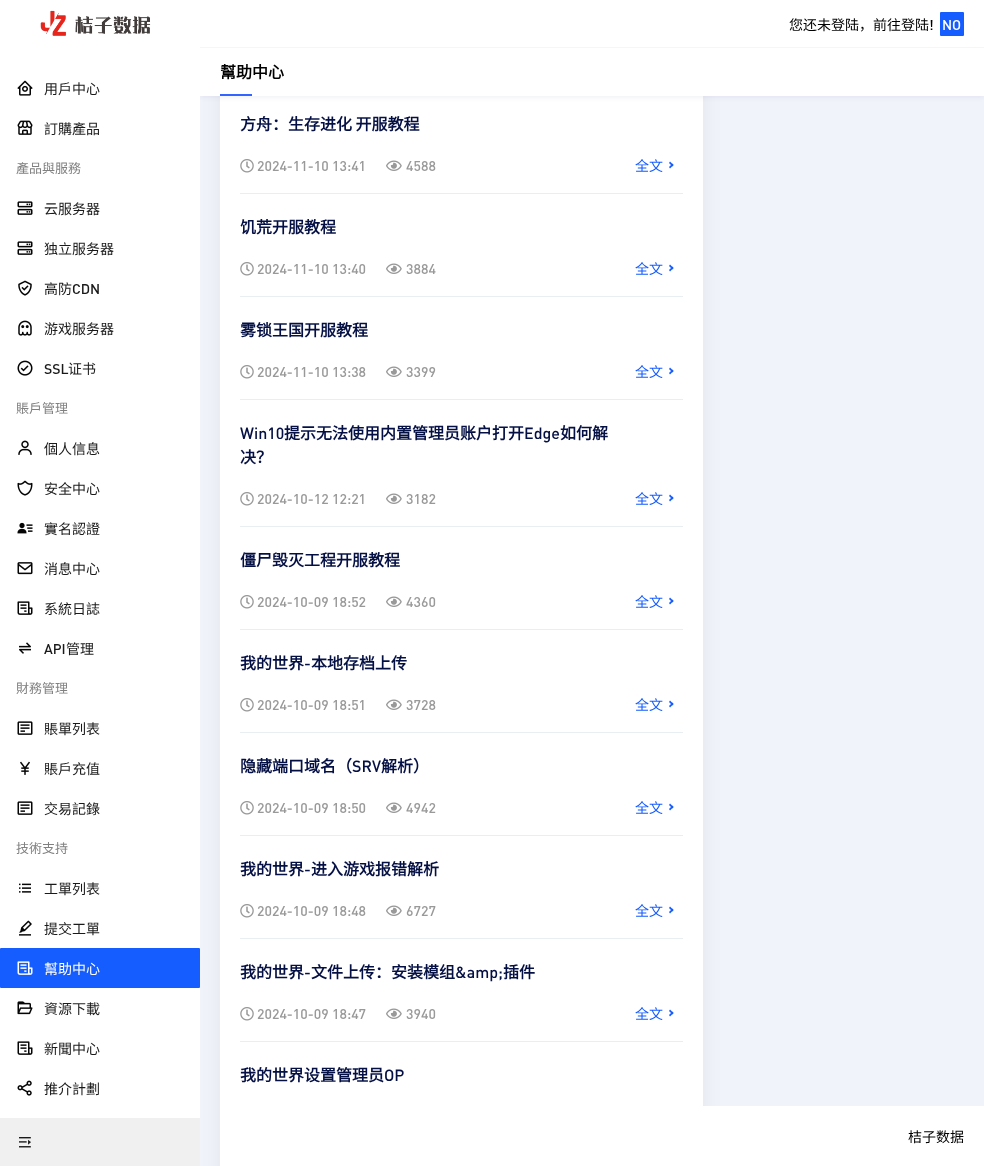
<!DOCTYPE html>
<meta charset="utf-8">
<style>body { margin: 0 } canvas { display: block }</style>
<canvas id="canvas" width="984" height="1166"></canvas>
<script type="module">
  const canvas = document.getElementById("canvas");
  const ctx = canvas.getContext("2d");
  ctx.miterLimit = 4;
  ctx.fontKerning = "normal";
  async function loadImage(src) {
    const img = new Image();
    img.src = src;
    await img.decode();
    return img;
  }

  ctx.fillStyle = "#f1f3fb";
  ctx.fillRect(0, 0, 984, 1166);
  ctx.fillStyle = "rgba(0, 0, 0, 0.06)";
  ctx.filter = "blur(10px)";
  ctx.beginPath();
  ctx.roundRect(220, -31, 483, 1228, 1);
  ctx.fill();
  ctx.filter = "none";
  ctx.fillStyle = "#ffffff";
  ctx.fillRect(220, 96, 483, 1010);
  ctx.fillStyle = "rgba(5, 17, 71, 0.05)";
  ctx.filter = "blur(2px)";
  ctx.beginPath();
  ctx.rect(200, 50, 784, 48);
  ctx.fill();
  ctx.filter = "none";
  ctx.fillStyle = "#ffffff";
  ctx.fillRect(200, 0, 784, 47);
  ctx.fillStyle = "#f4f6ff";
  ctx.fillRect(200, 47, 784, 1);
  ctx.fillStyle = "#ffffff";
  ctx.fillRect(0, 0, 200, 1118);
  ctx.drawImage(await loadImage("img1.png"), 40, 10, 111, 26);
  ctx.font = "14px Noto Sans CJK SC";
  ctx.fillStyle = "#000000";
  ctx.fillText("您还未登陆，前往登陆", 789, 30);
  ctx.font = "500 14px DIN";
  ctx.fillText("!", 929, 30);
  ctx.fillStyle = "#165dff";
  ctx.beginPath();
  ctx.roundRect(940, 12, 24, 24, 1);
  ctx.fill();
  ctx.fillStyle = "#ffffff";
  ctx.fillText("NO", 942, 30);
  ctx.fillRect(200, 48, 784, 48);
  ctx.font = "bold 16px Noto Sans CJK SC";
  ctx.fillStyle = "#000000";
  ctx.fillText("幫助中心", 220, 78);
  ctx.fillStyle = "#3464ff";
  ctx.fillRect(220, 94, 32, 2);
  ctx.drawImage(await loadImage("img2.png"), 17, 80, 16, 16);
  ctx.font = "14px Noto Sans CJK SC";
  ctx.fillStyle = "#1a1a1a";
  ctx.fillText("用戶中心", 44, 94);
  ctx.drawImage(await loadImage("img3.png"), 17, 120, 16, 15);
  ctx.fillText("訂購產品", 44, 134);
  ctx.font = "13px Noto Sans CJK SC";
  ctx.fillStyle = "#808080";
  ctx.fillText("產品與服務", 16, 173);
  ctx.drawImage(await loadImage("img4.png"), 17, 201, 16, 14);
  ctx.font = "14px Noto Sans CJK SC";
  ctx.fillStyle = "#1a1a1a";
  ctx.fillText("云服务器", 44, 214);
  ctx.drawImage(await loadImage("img4.png"), 17, 241, 16, 14);
  ctx.fillText("独立服务器", 44, 254);
  ctx.drawImage(await loadImage("img5.png"), 18, 280, 14, 16);
  ctx.fillText("高防", 44, 294);
  ctx.font = "500 14px DIN";
  ctx.fillText("CDN", 72, 294);
  ctx.drawImage(await loadImage("img6.png"), 18, 320, 14, 16);
  ctx.font = "14px Noto Sans CJK SC";
  ctx.fillText("游戏服务器", 44, 334);
  ctx.drawImage(await loadImage("img7.png"), 17, 360, 16, 16);
  ctx.font = "500 14px DIN";
  ctx.fillText("SSL", 44, 374);
  ctx.font = "14px Noto Sans CJK SC";
  ctx.fillText("证书", 68, 374);
  ctx.font = "13px Noto Sans CJK SC";
  ctx.fillStyle = "#808080";
  ctx.fillText("賬戶管理", 16, 413);
  ctx.drawImage(await loadImage("img8.png"), 18, 440, 14, 15);
  ctx.font = "14px Noto Sans CJK SC";
  ctx.fillStyle = "#1a1a1a";
  ctx.fillText("個人信息", 44, 454);
  ctx.drawImage(await loadImage("img9.png"), 17, 480, 16, 16);
  ctx.fillText("安全中心", 44, 494);
  ctx.drawImage(await loadImage("img10.png"), 17, 522, 16, 12);
  ctx.fillText("實名認證", 44, 534);
  ctx.drawImage(await loadImage("img11.png"), 17, 562, 16, 13);
  ctx.fillText("消息中心", 44, 574);
  ctx.drawImage(await loadImage("img12.png"), 17, 601, 16, 14);
  ctx.fillText("系統日誌", 44, 614);
  ctx.drawImage(await loadImage("img13.png"), 19, 642, 12, 12);
  ctx.font = "500 14px DIN";
  ctx.fillText("API", 44, 654);
  ctx.font = "14px Noto Sans CJK SC";
  ctx.fillText("管理", 66, 654);
  ctx.font = "13px Noto Sans CJK SC";
  ctx.fillStyle = "#808080";
  ctx.fillText("財務管理", 16, 693);
  ctx.drawImage(await loadImage("img14.png"), 17, 721, 16, 14);
  ctx.font = "14px Noto Sans CJK SC";
  ctx.fillStyle = "#1a1a1a";
  ctx.fillText("賬單列表", 44, 734);
  ctx.drawImage(await loadImage("img15.png"), 20, 761, 10, 14);
  ctx.fillText("賬戶充值", 44, 774);
  ctx.drawImage(await loadImage("img14.png"), 17, 801, 16, 14);
  ctx.fillText("交易記錄", 44, 814);
  ctx.font = "13px Noto Sans CJK SC";
  ctx.fillStyle = "#808080";
  ctx.fillText("技術支持", 16, 853);
  ctx.drawImage(await loadImage("img16.png"), 19, 883, 12, 10);
  ctx.font = "14px Noto Sans CJK SC";
  ctx.fillStyle = "#1a1a1a";
  ctx.fillText("工單列表", 44, 894);
  ctx.drawImage(await loadImage("img17.png"), 19, 920, 13, 16);
  ctx.fillText("提交工單", 44, 934);
  ctx.fillStyle = "#165dff";
  ctx.beginPath();
  ctx.roundRect(0, 948, 200, 40, 1);
  ctx.fill();
  ctx.drawImage(await loadImage("img18.png"), 17, 961, 16, 14);
  ctx.fillStyle = "#ffffff";
  ctx.fillText("幫助中心", 44, 974);
  ctx.drawImage(await loadImage("img19.png"), 17, 1001, 16, 14);
  ctx.fillStyle = "#1a1a1a";
  ctx.fillText("資源下載", 44, 1014);
  ctx.drawImage(await loadImage("img12.png"), 17, 1041, 16, 14);
  ctx.fillText("新聞中心", 44, 1054);
  ctx.drawImage(await loadImage("img20.png"), 17, 1080, 15, 16);
  ctx.fillText("推介計劃", 44, 1094);
  ctx.fillStyle = "#f0f0f0";
  ctx.fillRect(0, 1118, 200, 48);
  ctx.drawImage(await loadImage("img21.png"), 19, 1137, 12, 11);
  ctx.fillStyle = "#e9eef3";
  ctx.fillRect(240, 193, 443, 1);
  ctx.font = "bold 16px Noto Sans CJK SC";
  ctx.fillStyle = "#040f43";
  ctx.fillText("方舟：生存进化 开服教程", 240, 130);
  ctx.drawImage(await loadImage("img22.png"), 240, 159, 14, 14);
  ctx.font = "500 14px DIN";
  ctx.fillStyle = "#999999";
  ctx.fillText("2024-11-10 13:41", 257, 171);
  ctx.drawImage(await loadImage("img23.png"), 386, 160, 16, 11);
  ctx.fillText("4588", 406, 171);
  ctx.font = "14px Noto Sans CJK SC";
  ctx.fillStyle = "#165dff";
  ctx.fillText("全文", 635, 171);
  ctx.beginPath();
  ctx.moveTo(669, 163);
  ctx.lineTo(670, 161.5);
  ctx.lineTo(673.5, 165);
  ctx.lineTo(672.5, 166.5);
  ctx.closePath();
  ctx.fill();
  ctx.beginPath();
  ctx.moveTo(669, 167);
  ctx.lineTo(672.5, 163.5);
  ctx.lineTo(673.5, 165);
  ctx.lineTo(670, 168.5);
  ctx.closePath();
  ctx.fill();
  ctx.fillStyle = "#e9eef3";
  ctx.fillRect(240, 296, 443, 1);
  ctx.font = "bold 16px Noto Sans CJK SC";
  ctx.fillStyle = "#040f43";
  ctx.fillText("饥荒开服教程", 240, 233);
  ctx.drawImage(await loadImage("img22.png"), 240, 262, 14, 14);
  ctx.font = "500 14px DIN";
  ctx.fillStyle = "#999999";
  ctx.fillText("2024-11-10 13:40", 257, 274);
  ctx.drawImage(await loadImage("img23.png"), 386, 263, 16, 11);
  ctx.fillText("3884", 406, 274);
  ctx.font = "14px Noto Sans CJK SC";
  ctx.fillStyle = "#165dff";
  ctx.fillText("全文", 635, 274);
  ctx.beginPath();
  ctx.moveTo(669, 266);
  ctx.lineTo(670, 264.5);
  ctx.lineTo(673.5, 268);
  ctx.lineTo(672.5, 269.5);
  ctx.closePath();
  ctx.fill();
  ctx.beginPath();
  ctx.moveTo(669, 270);
  ctx.lineTo(672.5, 266.5);
  ctx.lineTo(673.5, 268);
  ctx.lineTo(670, 271.5);
  ctx.closePath();
  ctx.fill();
  ctx.fillStyle = "#e9eef3";
  ctx.fillRect(240, 399, 443, 1);
  ctx.font = "bold 16px Noto Sans CJK SC";
  ctx.fillStyle = "#040f43";
  ctx.fillText("雾锁王国开服教程", 240, 336);
  ctx.drawImage(await loadImage("img22.png"), 240, 365, 14, 14);
  ctx.font = "500 14px DIN";
  ctx.fillStyle = "#999999";
  ctx.fillText("2024-11-10 13:38", 257, 377);
  ctx.drawImage(await loadImage("img23.png"), 386, 366, 16, 11);
  ctx.fillText("3399", 406, 377);
  ctx.font = "14px Noto Sans CJK SC";
  ctx.fillStyle = "#165dff";
  ctx.fillText("全文", 635, 377);
  ctx.beginPath();
  ctx.moveTo(669, 369);
  ctx.lineTo(670, 367.5);
  ctx.lineTo(673.5, 371);
  ctx.lineTo(672.5, 372.5);
  ctx.closePath();
  ctx.fill();
  ctx.beginPath();
  ctx.moveTo(669, 373);
  ctx.lineTo(672.5, 369.5);
  ctx.lineTo(673.5, 371);
  ctx.lineTo(670, 374.5);
  ctx.closePath();
  ctx.fill();
  ctx.fillStyle = "#e9eef3";
  ctx.fillRect(240, 526, 443, 1);
  ctx.font = "500 16px DIN";
  ctx.fillStyle = "#040f43";
  ctx.fillText("Win10", 240, 439);
  ctx.font = "bold 16px Noto Sans CJK SC";
  ctx.fillText("提示无法使用内置管理员账户打开", 284, 439);
  ctx.font = "500 16px DIN";
  ctx.fillText("Edge", 524, 439);
  ctx.font = "bold 16px Noto Sans CJK SC";
  ctx.fillText("如何解", 560, 439);
  ctx.fillText("决？", 240, 463);
  ctx.drawImage(await loadImage("img22.png"), 240, 492, 14, 14);
  ctx.font = "500 14px DIN";
  ctx.fillStyle = "#999999";
  ctx.fillText("2024-10-12 12:21", 257, 504);
  ctx.drawImage(await loadImage("img23.png"), 386, 493, 16, 11);
  ctx.fillText("3182", 406, 504);
  ctx.font = "14px Noto Sans CJK SC";
  ctx.fillStyle = "#165dff";
  ctx.fillText("全文", 635, 504);
  ctx.beginPath();
  ctx.moveTo(669, 496);
  ctx.lineTo(670, 494.5);
  ctx.lineTo(673.5, 498);
  ctx.lineTo(672.5, 499.5);
  ctx.closePath();
  ctx.fill();
  ctx.beginPath();
  ctx.moveTo(669, 500);
  ctx.lineTo(672.5, 496.5);
  ctx.lineTo(673.5, 498);
  ctx.lineTo(670, 501.5);
  ctx.closePath();
  ctx.fill();
  ctx.fillStyle = "#e9eef3";
  ctx.fillRect(240, 629, 443, 1);
  ctx.font = "bold 16px Noto Sans CJK SC";
  ctx.fillStyle = "#040f43";
  ctx.fillText("僵尸毁灭工程开服教程", 240, 566);
  ctx.drawImage(await loadImage("img22.png"), 240, 595, 14, 14);
  ctx.font = "500 14px DIN";
  ctx.fillStyle = "#999999";
  ctx.fillText("2024-10-09 18:52", 257, 607);
  ctx.drawImage(await loadImage("img23.png"), 386, 596, 16, 11);
  ctx.fillText("4360", 406, 607);
  ctx.font = "14px Noto Sans CJK SC";
  ctx.fillStyle = "#165dff";
  ctx.fillText("全文", 635, 607);
  ctx.beginPath();
  ctx.moveTo(669, 599);
  ctx.lineTo(670, 597.5);
  ctx.lineTo(673.5, 601);
  ctx.lineTo(672.5, 602.5);
  ctx.closePath();
  ctx.fill();
  ctx.beginPath();
  ctx.moveTo(669, 603);
  ctx.lineTo(672.5, 599.5);
  ctx.lineTo(673.5, 601);
  ctx.lineTo(670, 604.5);
  ctx.closePath();
  ctx.fill();
  ctx.fillStyle = "#e9eef3";
  ctx.fillRect(240, 732, 443, 1);
  ctx.font = "bold 16px Noto Sans CJK SC";
  ctx.fillStyle = "#040f43";
  ctx.fillText("我的世界", 240, 669);
  ctx.font = "500 16px DIN";
  ctx.fillText("-", 304, 669);
  ctx.font = "bold 16px Noto Sans CJK SC";
  ctx.fillText("本地存档上传", 311, 669);
  ctx.drawImage(await loadImage("img22.png"), 240, 698, 14, 14);
  ctx.font = "500 14px DIN";
  ctx.fillStyle = "#999999";
  ctx.fillText("2024-10-09 18:51", 257, 710);
  ctx.drawImage(await loadImage("img23.png"), 386, 699, 16, 11);
  ctx.fillText("3728", 406, 710);
  ctx.font = "14px Noto Sans CJK SC";
  ctx.fillStyle = "#165dff";
  ctx.fillText("全文", 635, 710);
  ctx.beginPath();
  ctx.moveTo(669, 702);
  ctx.lineTo(670, 700.5);
  ctx.lineTo(673.5, 704);
  ctx.lineTo(672.5, 705.5);
  ctx.closePath();
  ctx.fill();
  ctx.beginPath();
  ctx.moveTo(669, 706);
  ctx.lineTo(672.5, 702.5);
  ctx.lineTo(673.5, 704);
  ctx.lineTo(670, 707.5);
  ctx.closePath();
  ctx.fill();
  ctx.fillStyle = "#e9eef3";
  ctx.fillRect(240, 835, 443, 1);
  ctx.font = "bold 16px Noto Sans CJK SC";
  ctx.fillStyle = "#040f43";
  ctx.fillText("隐藏端口域名（", 240, 772);
  ctx.font = "500 16px DIN";
  ctx.fillText("SRV", 352, 772);
  ctx.font = "bold 16px Noto Sans CJK SC";
  ctx.fillText("解析）", 381, 772);
  ctx.drawImage(await loadImage("img22.png"), 240, 801, 14, 14);
  ctx.font = "500 14px DIN";
  ctx.fillStyle = "#999999";
  ctx.fillText("2024-10-09 18:50", 257, 813);
  ctx.drawImage(await loadImage("img23.png"), 386, 802, 16, 11);
  ctx.fillText("4942", 406, 813);
  ctx.font = "14px Noto Sans CJK SC";
  ctx.fillStyle = "#165dff";
  ctx.fillText("全文", 635, 813);
  ctx.beginPath();
  ctx.moveTo(669, 805);
  ctx.lineTo(670, 803.5);
  ctx.lineTo(673.5, 807);
  ctx.lineTo(672.5, 808.5);
  ctx.closePath();
  ctx.fill();
  ctx.beginPath();
  ctx.moveTo(669, 809);
  ctx.lineTo(672.5, 805.5);
  ctx.lineTo(673.5, 807);
  ctx.lineTo(670, 810.5);
  ctx.closePath();
  ctx.fill();
  ctx.fillStyle = "#e9eef3";
  ctx.fillRect(240, 938, 443, 1);
  ctx.font = "bold 16px Noto Sans CJK SC";
  ctx.fillStyle = "#040f43";
  ctx.fillText("我的世界", 240, 875);
  ctx.font = "500 16px DIN";
  ctx.fillText("-", 304, 875);
  ctx.font = "bold 16px Noto Sans CJK SC";
  ctx.fillText("进入游戏报错解析", 311, 875);
  ctx.drawImage(await loadImage("img22.png"), 240, 904, 14, 14);
  ctx.font = "500 14px DIN";
  ctx.fillStyle = "#999999";
  ctx.fillText("2024-10-09 18:48", 257, 916);
  ctx.drawImage(await loadImage("img23.png"), 386, 905, 16, 11);
  ctx.fillText("6727", 406, 916);
  ctx.font = "14px Noto Sans CJK SC";
  ctx.fillStyle = "#165dff";
  ctx.fillText("全文", 635, 916);
  ctx.beginPath();
  ctx.moveTo(669, 908);
  ctx.lineTo(670, 906.5);
  ctx.lineTo(673.5, 910);
  ctx.lineTo(672.5, 911.5);
  ctx.closePath();
  ctx.fill();
  ctx.beginPath();
  ctx.moveTo(669, 912);
  ctx.lineTo(672.5, 908.5);
  ctx.lineTo(673.5, 910);
  ctx.lineTo(670, 913.5);
  ctx.closePath();
  ctx.fill();
  ctx.fillStyle = "#e9eef3";
  ctx.fillRect(240, 1041, 443, 1);
  ctx.font = "bold 16px Noto Sans CJK SC";
  ctx.fillStyle = "#040f43";
  ctx.fillText("我的世界", 240, 978);
  ctx.font = "500 16px DIN";
  ctx.fillText("-", 304, 978);
  ctx.font = "bold 16px Noto Sans CJK SC";
  ctx.fillText("文件上传：安装模组", 311, 978);
  ctx.font = "500 16px DIN";
  ctx.fillText("&amp;", 455, 978);
  ctx.font = "bold 16px Noto Sans CJK SC";
  ctx.fillText("插件", 503, 978);
  ctx.drawImage(await loadImage("img22.png"), 240, 1007, 14, 14);
  ctx.font = "500 14px DIN";
  ctx.fillStyle = "#999999";
  ctx.fillText("2024-10-09 18:47", 257, 1019);
  ctx.drawImage(await loadImage("img23.png"), 386, 1008, 16, 11);
  ctx.fillText("3940", 406, 1019);
  ctx.font = "14px Noto Sans CJK SC";
  ctx.fillStyle = "#165dff";
  ctx.fillText("全文", 635, 1019);
  ctx.beginPath();
  ctx.moveTo(669, 1011);
  ctx.lineTo(670, 1009.5);
  ctx.lineTo(673.5, 1013);
  ctx.lineTo(672.5, 1014.5);
  ctx.closePath();
  ctx.fill();
  ctx.beginPath();
  ctx.moveTo(669, 1015);
  ctx.lineTo(672.5, 1011.5);
  ctx.lineTo(673.5, 1013);
  ctx.lineTo(670, 1016.5);
  ctx.closePath();
  ctx.fill();
  ctx.font = "bold 16px Noto Sans CJK SC";
  ctx.fillStyle = "#040f43";
  ctx.fillText("我的世界设置管理员", 240, 1081);
  ctx.font = "500 16px DIN";
  ctx.fillText("OP", 384, 1081);
  ctx.fillStyle = "#ffffff";
  ctx.fillRect(220, 1106, 764, 60);
  ctx.font = "14px Noto Sans CJK SC";
  ctx.fillStyle = "#000000";
  ctx.fillText("桔子数据", 908, 1142);
</script>
